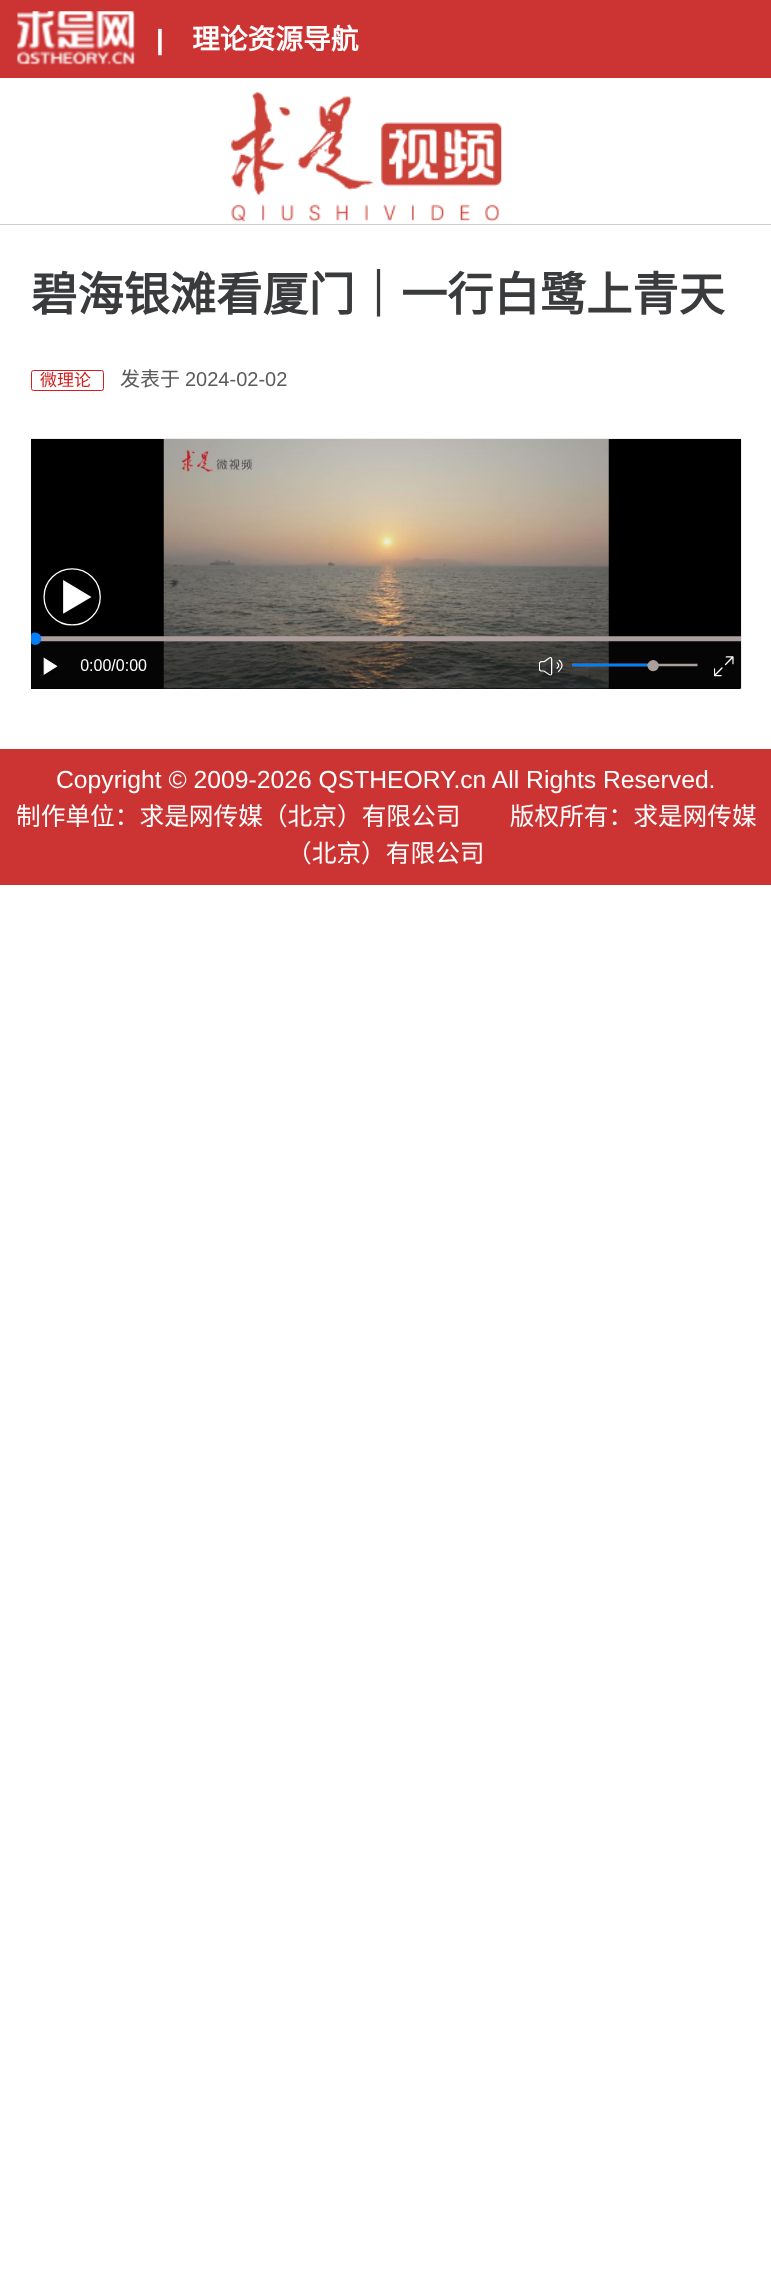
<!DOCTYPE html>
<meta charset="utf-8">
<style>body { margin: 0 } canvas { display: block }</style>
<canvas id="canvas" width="771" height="2295"></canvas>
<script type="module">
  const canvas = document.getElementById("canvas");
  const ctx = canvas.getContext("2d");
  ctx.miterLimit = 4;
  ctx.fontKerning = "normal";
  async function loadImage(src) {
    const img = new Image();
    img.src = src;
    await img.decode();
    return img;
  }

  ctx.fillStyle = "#ffffff";
  ctx.fillRect(0, 0, 771, 2295);
  ctx.fillStyle = "#cc3333";
  ctx.fillRect(0, 0, 771, 78);
  ctx.drawImage(await loadImage("img1.png"), 17, 11, 118, 54);
  ctx.font = "bold 27.75px Liberation Sans";
  ctx.fillStyle = "#ffffff";
  ctx.fillText("|", 156, 49);
  ctx.font = "bold 27.75px Noto Sans CJK SC";
  ctx.fillText("理论资源导航", 192, 49);
  ctx.fillStyle = "#cdcdcd";
  ctx.fillRect(0, 224, 771, 1);
  ctx.drawImage(await loadImage("img2.png"), 231, 92, 271, 130);
  ctx.font = "bold 46.25px Noto Sans CJK SC";
  ctx.fillStyle = "#3a3b3d";
  ctx.fillText("碧海银滩看厦门｜一行白鹭上青天", 31, 311);
  ctx.beginPath();
  ctx.roundRect(31.5, 370.5, 72, 20, 2);
  ctx.strokeStyle = "#d21e1e";
  ctx.stroke();
  ctx.font = "17px Noto Sans CJK SC";
  ctx.fillStyle = "#d21e1e";
  ctx.fillText("微理论", 40, 386);
  ctx.font = "20px Noto Sans CJK SC";
  ctx.fillStyle = "#5a5a5a";
  ctx.fillText("发表于", 120, 386);
  ctx.font = "20px Liberation Sans";
  ctx.fillText("2024-02-02", 185, 386);
  ctx.fillStyle = "#000000";
  ctx.fillRect(31, 439, 709, 250);
  ctx.drawImage(await loadImage("img3.png"), 31, 438, 711, 251);
  ctx.fillStyle = "#cc3333";
  ctx.fillRect(0, 749, 771, 136);
  ctx.font = "24.7px Liberation Sans";
  ctx.fillStyle = "#ffffff";
  ctx.fillText("Copyright © 2009-2026 QSTHEORY.cn All Rights Reserved.", 56, 788);
  ctx.font = "24.7px Noto Sans CJK SC";
  ctx.fillText("制作单位：求是网传媒（北京）有限公司　　版权所有：求是网传媒", 16, 825);
  ctx.fillText("（北京）有限公司", 287, 862);
</script>
